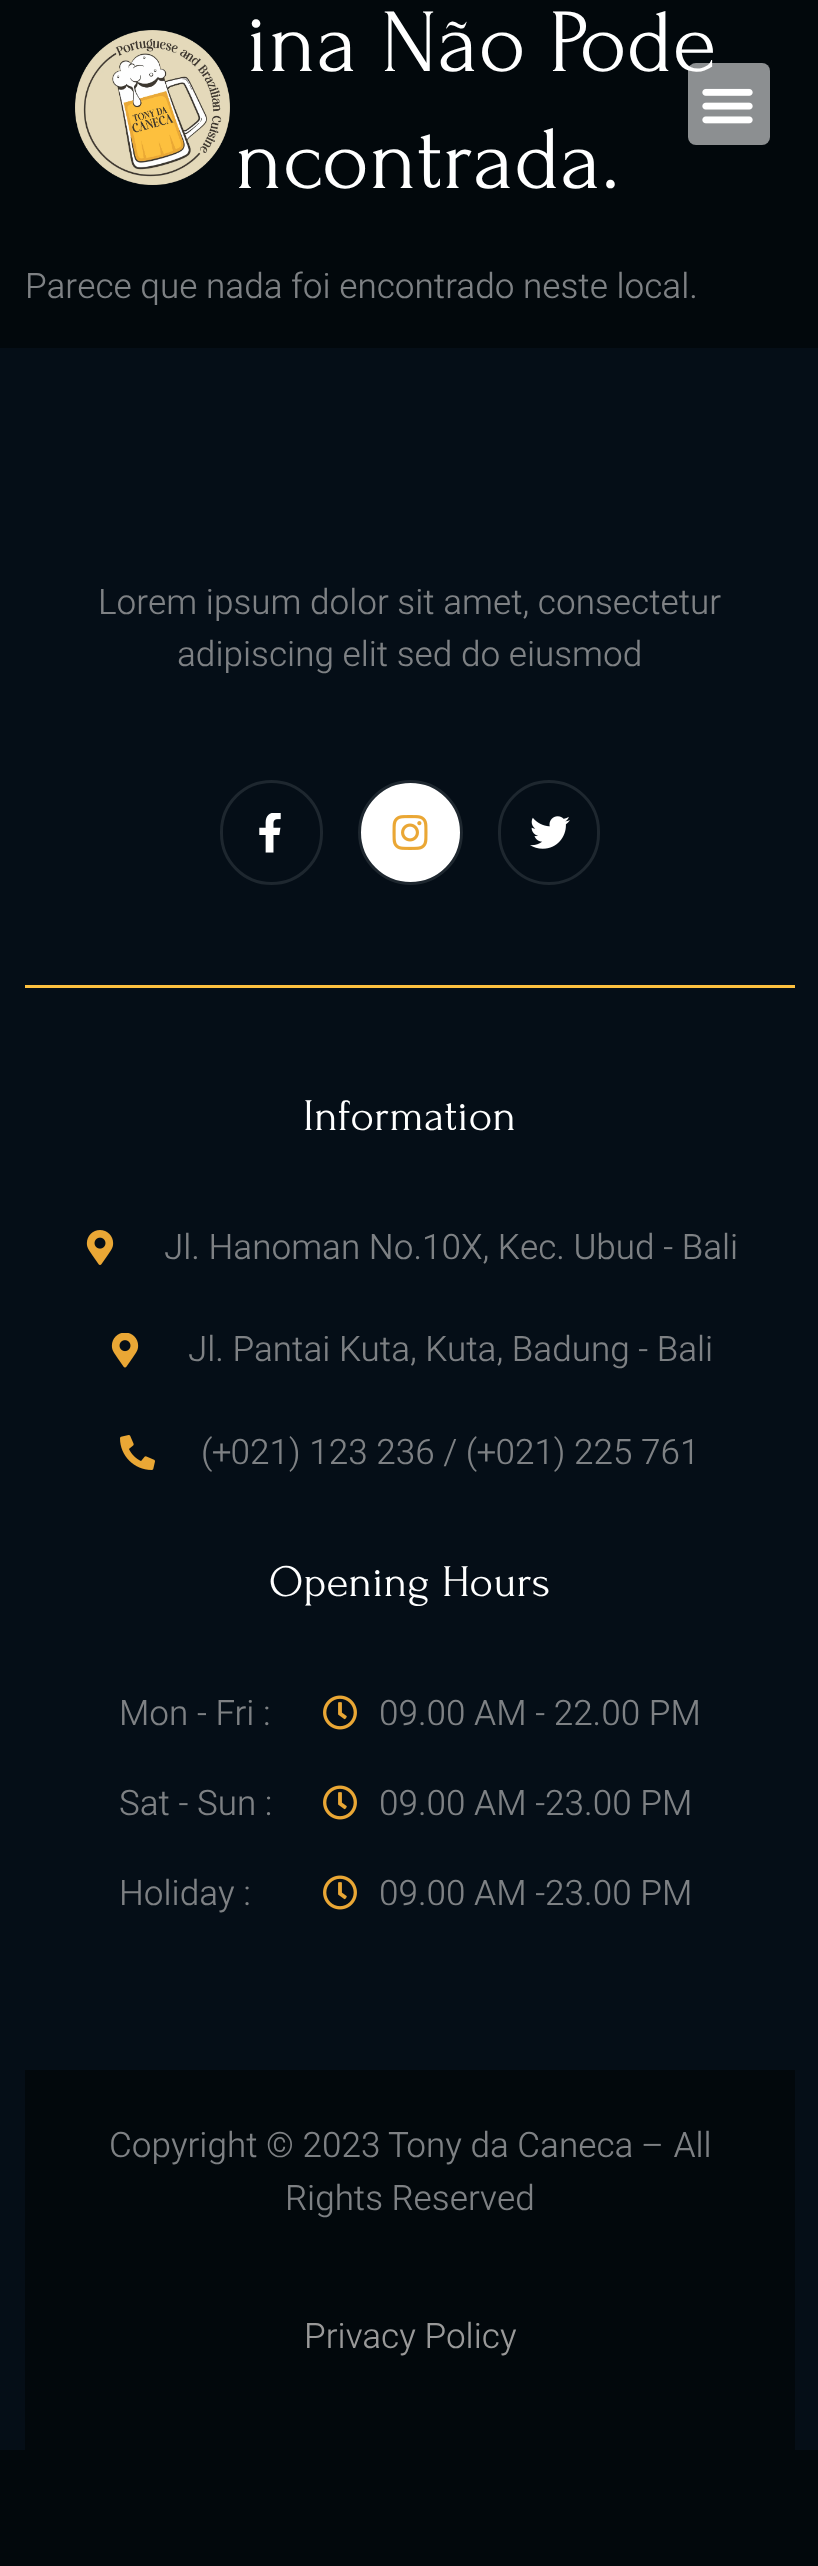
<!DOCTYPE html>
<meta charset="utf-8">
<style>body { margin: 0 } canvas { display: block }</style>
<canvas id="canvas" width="818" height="2566"></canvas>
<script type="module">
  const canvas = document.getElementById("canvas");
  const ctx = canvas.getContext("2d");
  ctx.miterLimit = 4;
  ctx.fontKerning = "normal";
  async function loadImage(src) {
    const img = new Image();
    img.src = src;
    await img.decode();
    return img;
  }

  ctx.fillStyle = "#02080c";
  ctx.fillRect(0, 0, 818, 2566);
  ctx.font = "90px Forum";
  ctx.fillStyle = "#ffffff";
  ctx.fillText("ina Não Pode", 246, 71);
  ctx.fillText("ncontrada.", 235, 188);
  ctx.font = "300 35px Heebo";
  ctx.fillStyle = "#7e8184";
  ctx.fillText("Parece que nada foi encontrado neste local.", 25, 298);
  ctx.drawImage(await loadImage("img1.png"), 75, 30, 155, 155);
  ctx.fillStyle = "rgba(255, 255, 255, 0.55)";
  ctx.beginPath();
  ctx.roundRect(688, 63, 82, 82, 8);
  ctx.fill();
  ctx.drawImage(await loadImage("img2.png"), 702, 88, 51, 36);
  ctx.fillStyle = "#050e17";
  ctx.fillRect(0, 348, 818, 2102);
  ctx.fillStyle = "#fdc03f";
  ctx.fillRect(25, 985, 770, 3);
  ctx.fillStyle = "#7e8184";
  ctx.fillText("Lorem ipsum dolor sit amet, consectetur", 98, 614);
  ctx.fillText("adipiscing elit sed do eiusmod", 177, 666);
  ctx.beginPath();
  ctx.roundRect(221.5, 781.5, 100, 102, 50);
  ctx.strokeStyle = "#1e272f";
  ctx.lineWidth = 3;
  ctx.stroke();
  ctx.drawImage(await loadImage("img3.png"), 259, 813, 22, 40);
  ctx.fillStyle = "#ffffff";
  ctx.beginPath();
  ctx.arc(410.5, 832.5, 51, 0, Math.PI * 2);
  ctx.fill();
  ctx.stroke();
  ctx.drawImage(await loadImage("img4.png"), 392, 815, 36, 35);
  ctx.beginPath();
  ctx.roundRect(499.5, 781.5, 99, 102, 49.5);
  ctx.stroke();
  ctx.drawImage(await loadImage("img5.png"), 530, 816, 40, 33);
  ctx.font = "45px Forum";
  ctx.fillText("Information", 303, 1130);
  ctx.drawImage(await loadImage("img6.png"), 86, 1230, 28, 35);
  ctx.font = "300 35px Heebo";
  ctx.fillStyle = "#7e8184";
  ctx.fillText("Jl. Hanoman No.10X, Kec. Ubud - Bali", 164, 1259);
  ctx.drawImage(await loadImage("img7.png"), 111, 1333, 28, 35);
  ctx.fillText("Jl. Pantai Kuta, Kuta, Badung - Bali", 188, 1361);
  ctx.drawImage(await loadImage("img8.png"), 120, 1435, 35, 35);
  ctx.fillText("(+021) 123 236 / (+021) 225 761", 201, 1464);
  ctx.font = "45px Forum";
  ctx.fillStyle = "#ffffff";
  ctx.fillText("Opening Hours", 269, 1596);
  ctx.font = "300 35px Heebo";
  ctx.fillStyle = "#7e8184";
  ctx.fillText("Mon - Fri :", 119, 1725);
  ctx.fillText("Sat - Sun :", 119, 1815);
  ctx.fillText("Holiday :", 119, 1905);
  ctx.drawImage(await loadImage("img9.png"), 323, 1695, 34, 35);
  ctx.fillText("09.00 AM - 22.00 PM", 379, 1725);
  ctx.drawImage(await loadImage("img9.png"), 323, 1785, 34, 35);
  ctx.fillText("09.00 AM -23.00 PM", 379, 1815);
  ctx.drawImage(await loadImage("img9.png"), 323, 1875, 34, 35);
  ctx.fillText("09.00 AM -23.00 PM", 379, 1905);
  ctx.fillStyle = "#02080c";
  ctx.fillRect(25, 2070, 770, 380);
  ctx.fillStyle = "#7e8184";
  ctx.fillText("Copyright © 2023 Tony da Caneca – All", 109, 2157);
  ctx.fillText("Rights Reserved", 285, 2210);
  ctx.fillStyle = "#999999";
  ctx.fillText("Privacy Policy", 304, 2348);
</script>
